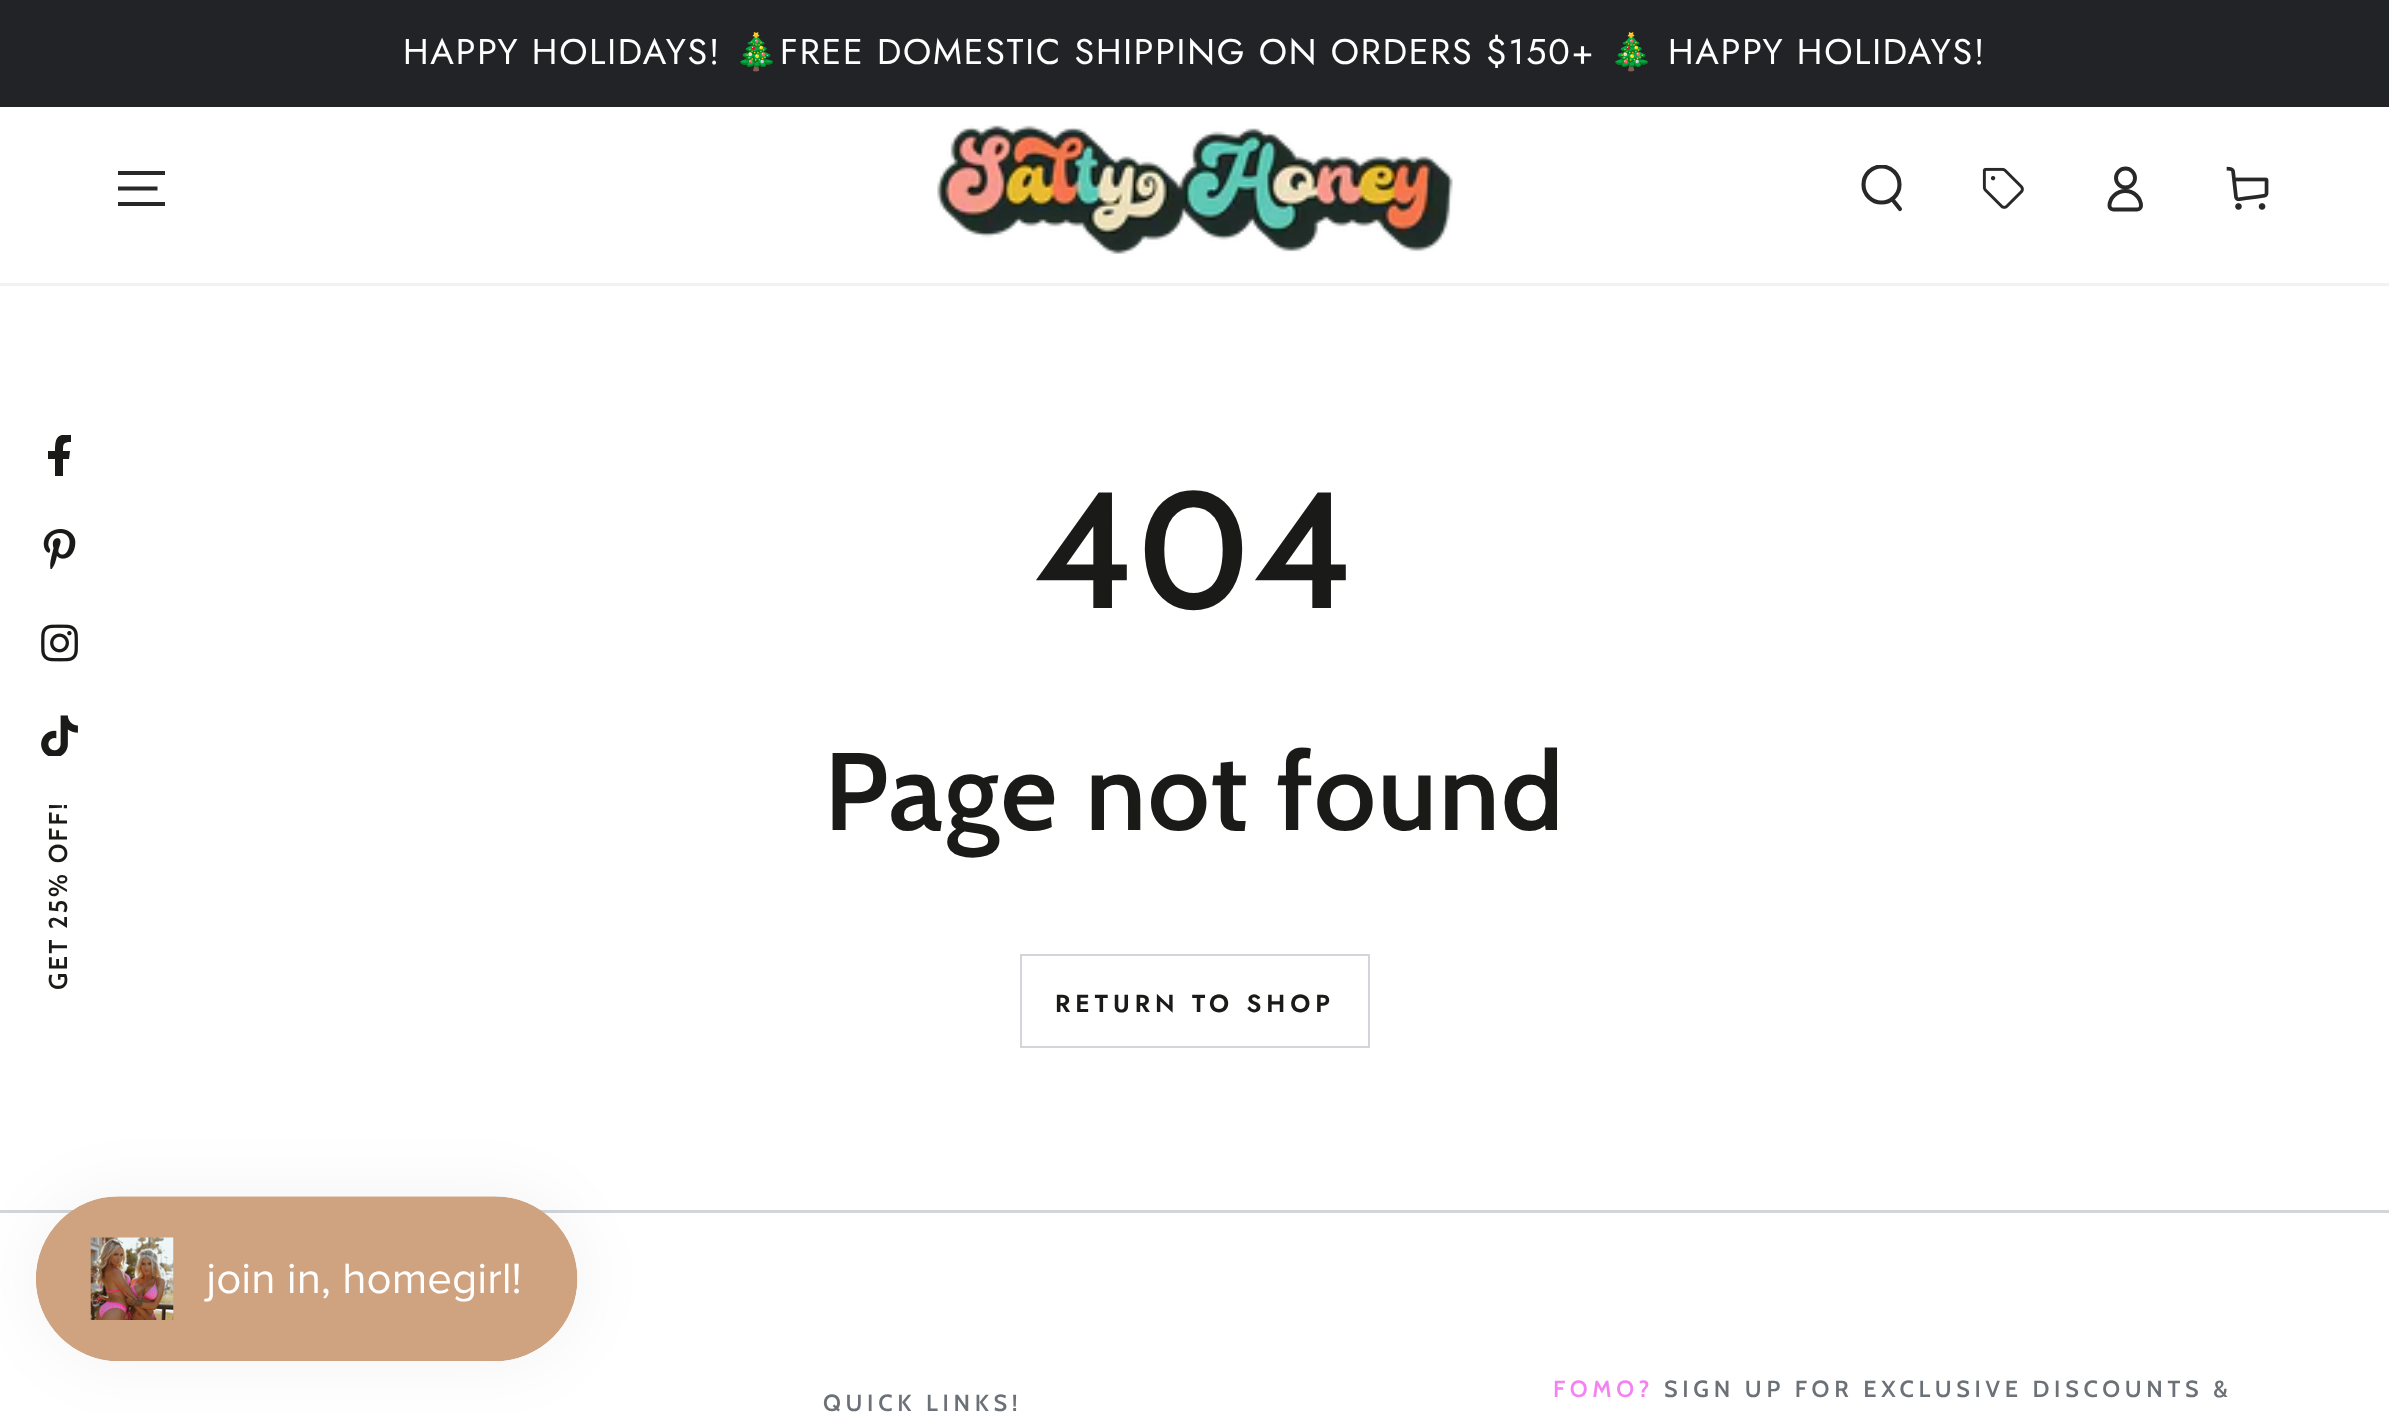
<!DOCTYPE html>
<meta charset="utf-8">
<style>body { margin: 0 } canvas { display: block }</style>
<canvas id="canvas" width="2389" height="1414"></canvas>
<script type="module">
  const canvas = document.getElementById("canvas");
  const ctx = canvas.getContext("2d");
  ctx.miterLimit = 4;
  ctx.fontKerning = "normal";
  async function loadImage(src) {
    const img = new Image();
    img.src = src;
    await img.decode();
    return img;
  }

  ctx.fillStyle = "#ffffff";
  ctx.fillRect(0, 0, 2389, 1414);
  ctx.save();
  ctx.beginPath();
  ctx.rect(39, 435, 41, 41);
  ctx.clip();
  ctx.fillStyle = "#1a1b18";
  ctx.beginPath();
  ctx.moveTo(69, 459);
  ctx.lineTo(70, 451);
  ctx.lineTo(63, 451);
  ctx.bezierCurveTo(63, 444, 63, 442, 71, 442);
  ctx.lineTo(71, 435);
  ctx.bezierCurveTo(57, 433, 55, 438, 55, 451);
  ctx.lineTo(48, 451);
  ctx.lineTo(48, 459);
  ctx.lineTo(55, 459);
  ctx.lineTo(55, 477);
  ctx.lineTo(63, 477);
  ctx.lineTo(63, 459);
  ctx.closePath();
  ctx.fill();
  ctx.restore();
  ctx.drawImage(await loadImage("img1.png"), 43, 529, 33, 40);
  ctx.drawImage(await loadImage("img2.png"), 41, 624, 37, 38);
  ctx.drawImage(await loadImage("img3.png"), 41, 715, 37, 41);
  ctx.letterSpacing = "2.3px";
  ctx.font = "600 25.75px Cabin";
  ctx.fillStyle = "#1a1b18";
  ctx.save();
  ctx.translate(67, 990);
  ctx.rotate(-90 * Math.PI / 180);
  ctx.fillText("GET 25% OFF!", 0, 0);
  ctx.restore();
  ctx.fillStyle = "#212326";
  ctx.fillRect(0, 0, 2389, 107);
  ctx.letterSpacing = "1.8px";
  ctx.font = "35.75px Jost";
  ctx.fillStyle = "#ffffff";
  ctx.fillText("HAPPY HOLIDAYS!", 403, 64);
  ctx.font = "35.75px Noto Color Emoji";
  ctx.fillText("🎄", 734, 64);
  ctx.font = "35.75px Jost";
  ctx.fillText("FREE DOMESTIC SHIPPING ON ORDERS $150+", 780, 64);
  ctx.font = "35.75px Noto Color Emoji";
  ctx.fillText("🎄", 1609, 64);
  ctx.font = "35.75px Jost";
  ctx.fillText("HAPPY HOLIDAYS!", 1668, 64);
  ctx.fillStyle = "#f2f2f4";
  ctx.beginPath();
  ctx.moveTo(0, 283);
  ctx.lineTo(0, 286);
  ctx.lineTo(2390, 286);
  ctx.lineTo(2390, 110);
  ctx.lineTo(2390, 283);
  ctx.closePath();
  ctx.fill();
  ctx.beginPath();
  ctx.moveTo(118, 204);
  ctx.lineTo(165, 204);
  ctx.moveTo(118, 188.5);
  ctx.lineTo(157.5, 188.5);
  ctx.moveTo(118, 173);
  ctx.lineTo(165, 173);
  ctx.strokeStyle = "#282828";
  ctx.lineWidth = 3.8;
  ctx.stroke();
  ctx.drawImage(await loadImage("img4.png"), 937, 125, 516, 129);
  ctx.save();
  ctx.beginPath();
  ctx.rect(1859, 165, 47, 47);
  ctx.clip();
  ctx.beginPath();
  ctx.arc(1881.5, 184.5, 18, 0, Math.PI * 2);
  ctx.lineWidth = 4.1;
  ctx.stroke();
  ctx.restore();
  ctx.beginPath();
  ctx.moveTo(1892, 199);
  ctx.lineTo(1900, 209);
  ctx.lineWidth = 4.1;
  ctx.lineCap = "round";
  ctx.stroke();
  ctx.drawImage(await loadImage("img5.png"), 1982, 167, 42, 42);
  ctx.beginPath();
  ctx.moveTo(2125.5, 191);
  ctx.bezierCurveTo(2116.5, 191, 2109.5, 198, 2109.5, 206);
  ctx.bezierCurveTo(2109.5, 208, 2111.5, 209.5, 2113.5, 209.5);
  ctx.lineTo(2137, 209.5);
  ctx.bezierCurveTo(2139, 209.5, 2141, 208, 2141, 206);
  ctx.bezierCurveTo(2141, 198, 2134, 191, 2125.5, 191);
  ctx.closePath();
  ctx.lineWidth = 3.9;
  ctx.lineCap = "butt";
  ctx.stroke();
  ctx.beginPath();
  ctx.arc(2125.5, 178, 9.5, 0, Math.PI * 2);
  ctx.stroke();
  ctx.drawImage(await loadImage("img6.png"), 2226, 166, 43, 44);
  ctx.letterSpacing = "1.6px";
  ctx.font = "600 165px Cabin";
  ctx.fillStyle = "#1a1b18";
  ctx.fillText("404", 1034, 608);
  ctx.font = "600 110px Cabin";
  ctx.fillText("Page not found", 824, 830);
  ctx.strokeStyle = "#d2d5d9";
  ctx.lineWidth = 2;
  ctx.strokeRect(1021, 955, 348, 92);
  ctx.letterSpacing = "5px";
  ctx.font = "600 24.75px Jost";
  ctx.fillText("RETURN TO SHOP", 1055, 1012);
  ctx.fillStyle = "#d2d5d9";
  ctx.fillRect(0, 1210, 2389, 3);
  ctx.letterSpacing = "4.7px";
  ctx.font = "600 23.4px Cabin";
  ctx.fillStyle = "#f483f2";
  ctx.fillText("FOMO?", 1553, 1397);
  ctx.fillStyle = "#6b7177";
  ctx.fillText("SIGN UP FOR EXCLUSIVE DISCOUNTS &", 1664, 1397);
  ctx.fillText("QUICK LINKS!", 823, 1411);
  ctx.fillStyle = "rgba(0, 0, 0, 0.05)";
  ctx.filter = "blur(34.5px)";
  ctx.beginPath();
  ctx.roundRect(36, 1196, 542, 165, 82.5);
  ctx.fill();
  ctx.filter = "none";
  ctx.drawImage(await loadImage("img7.png"), 36, 1196, 542, 165);
</script>
